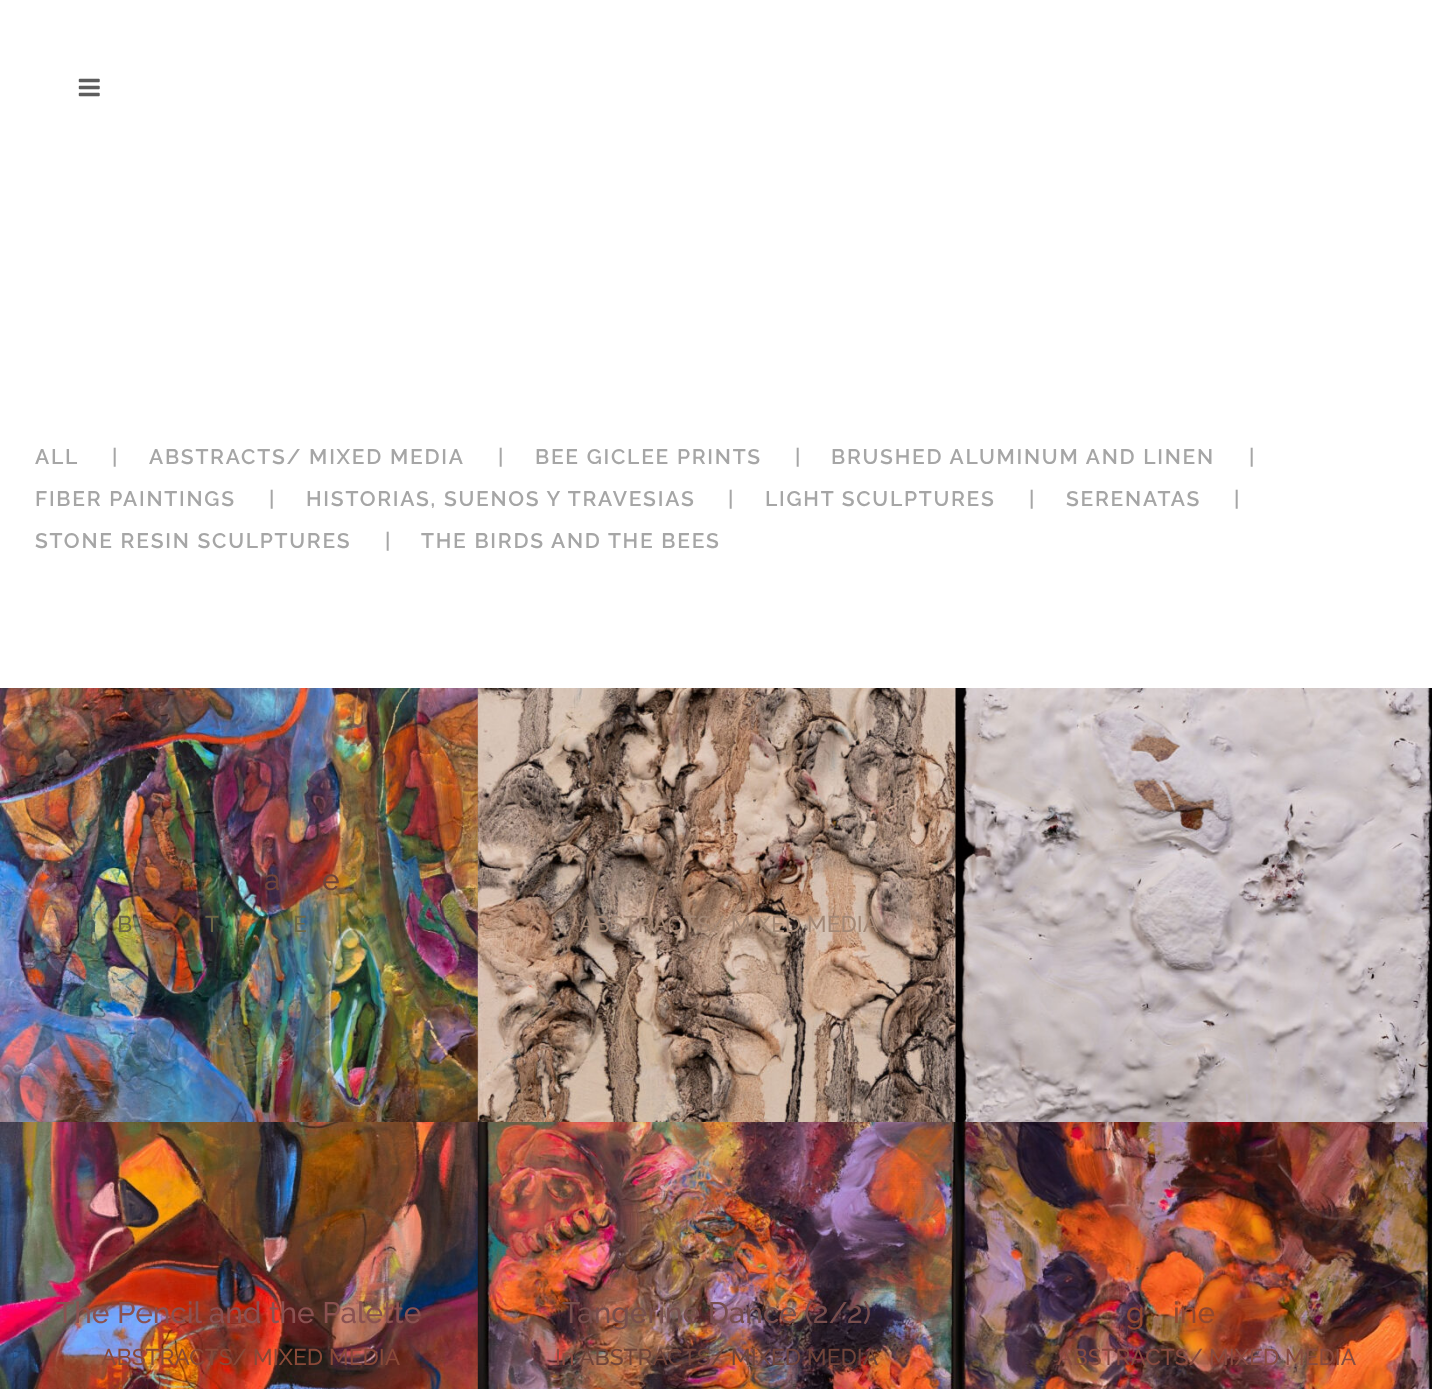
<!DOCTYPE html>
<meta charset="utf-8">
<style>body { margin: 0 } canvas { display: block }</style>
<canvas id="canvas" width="1432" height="1389"></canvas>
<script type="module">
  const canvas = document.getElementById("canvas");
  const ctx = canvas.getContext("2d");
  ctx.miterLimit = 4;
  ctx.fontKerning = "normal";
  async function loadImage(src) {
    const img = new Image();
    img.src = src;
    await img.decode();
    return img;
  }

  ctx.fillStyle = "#ffffff";
  ctx.fillRect(0, 0, 1432, 1389);
  ctx.drawImage(await loadImage("img1.png"), 78, 78, 22, 19);
  ctx.letterSpacing = "1.75px";
  ctx.font = "600 21px Raleway";
  ctx.fillStyle = "#a6a6a6";
  ctx.fillText("ALL", 35, 464);
  ctx.fillText("|", 112, 464);
  ctx.fillText("ABSTRACTS/ MIXED MEDIA", 149, 464);
  ctx.fillText("|", 498, 464);
  ctx.fillText("BEE GICLEE PRINTS", 535, 464);
  ctx.fillText("|", 795, 464);
  ctx.fillText("BRUSHED ALUMINUM AND LINEN", 831, 464);
  ctx.fillText("|", 1249, 464);
  ctx.fillText("FIBER PAINTINGS", 35, 506);
  ctx.fillText("|", 269, 506);
  ctx.fillText("HISTORIAS, SUENOS Y TRAVESIAS", 306, 506);
  ctx.fillText("|", 728, 506);
  ctx.fillText("LIGHT SCULPTURES", 765, 506);
  ctx.fillText("|", 1029, 506);
  ctx.fillText("SERENATAS", 1066, 506);
  ctx.fillText("|", 1234, 506);
  ctx.fillText("STONE RESIN SCULPTURES", 35, 548);
  ctx.fillText("|", 385, 548);
  ctx.fillText("THE BIRDS AND THE BEES", 421, 548);
  ctx.drawImage(await loadImage("img2.png"), 0, 688, 478, 434);
  ctx.letterSpacing = "0px";
  ctx.font = "500 29.75px Raleway";
  ctx.fillStyle = "#70443a";
  ctx.fillText("a", 264, 890);
  ctx.fillText("e", 322, 890);
  ctx.font = "500 22.75px Raleway";
  ctx.fillStyle = "#485e57";
  ctx.fillText("In", 77, 932);
  ctx.fillStyle = "#6e6746";
  ctx.fillText("B", 117, 932);
  ctx.fillText("T", 205, 932);
  ctx.fillText("E", 293, 932);
  ctx.drawImage(await loadImage("img3.png"), 477, 688, 479, 434);
  ctx.fillStyle = "#a28775";
  ctx.fillText("ABSTRACTS/ MIXED MEDIA", 579, 932);
  ctx.drawImage(await loadImage("img4.png"), 955, 688, 477, 434);
  ctx.drawImage(await loadImage("img5.png"), 0, 1122, 478, 267);
  ctx.font = "500 29.75px Raleway";
  ctx.fillStyle = "#8a5151";
  ctx.fillText("The Pencil and the Palette", 56, 1323);
  ctx.font = "500 22.75px Raleway";
  ctx.fillStyle = "#894938";
  ctx.fillText("ABSTRACTS/ MIXED MEDIA", 101, 1365);
  ctx.drawImage(await loadImage("img6.png"), 477, 1122, 479, 267);
  ctx.font = "500 29.75px Raleway";
  ctx.fillStyle = "#774e4d";
  ctx.fillText("Tangerine Dance (2/2)", 562, 1323);
  ctx.font = "500 22.75px Raleway";
  ctx.fillStyle = "#8f4b42";
  ctx.fillText("In", 555, 1365);
  ctx.fillStyle = "#70443a";
  ctx.fillText("ABSTRACTS/ MIXED MEDIA", 579, 1365);
  ctx.drawImage(await loadImage("img7.png"), 955, 1122, 477, 267);
  ctx.font = "500 29.75px Raleway";
  ctx.fillStyle = "#924830";
  ctx.fillText("g", 1126, 1323);
  ctx.fillText("ine", 1173, 1323);
  ctx.font = "500 22.75px Raleway";
  ctx.fillStyle = "#884b40";
  ctx.fillText("ABSTRACTS/ MIXED MEDIA", 1057, 1365);
</script>
